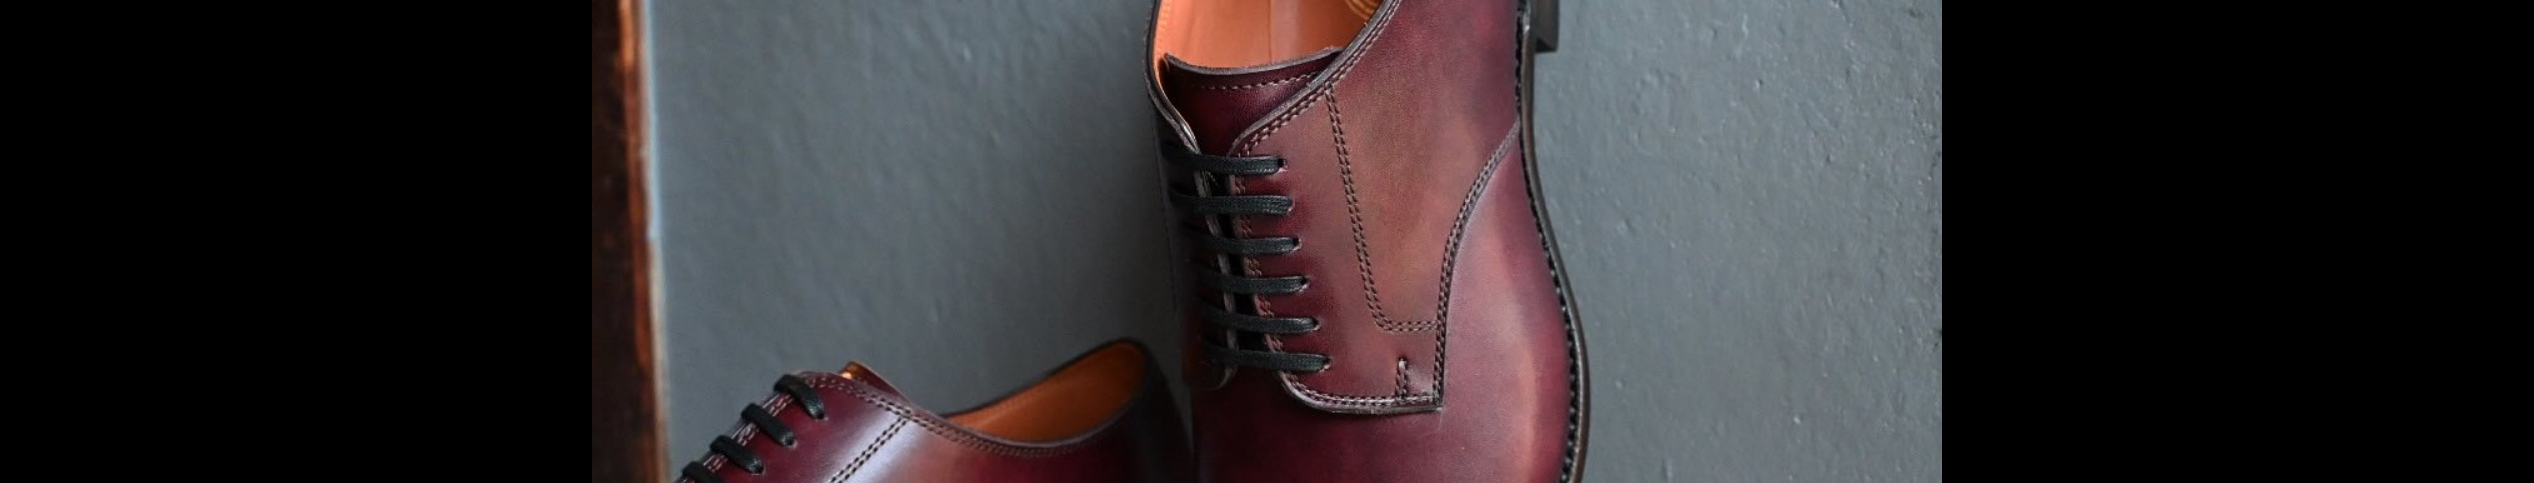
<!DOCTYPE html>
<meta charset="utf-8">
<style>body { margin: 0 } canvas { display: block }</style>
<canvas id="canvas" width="2534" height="483"></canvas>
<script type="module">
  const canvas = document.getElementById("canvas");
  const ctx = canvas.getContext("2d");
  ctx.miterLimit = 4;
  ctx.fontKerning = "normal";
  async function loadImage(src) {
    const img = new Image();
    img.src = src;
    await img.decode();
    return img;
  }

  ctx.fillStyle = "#000000";
  ctx.fillRect(0, 0, 2534, 483);
  ctx.drawImage(await loadImage("img1.png"), 592, 0, 1350, 483);
</script>
